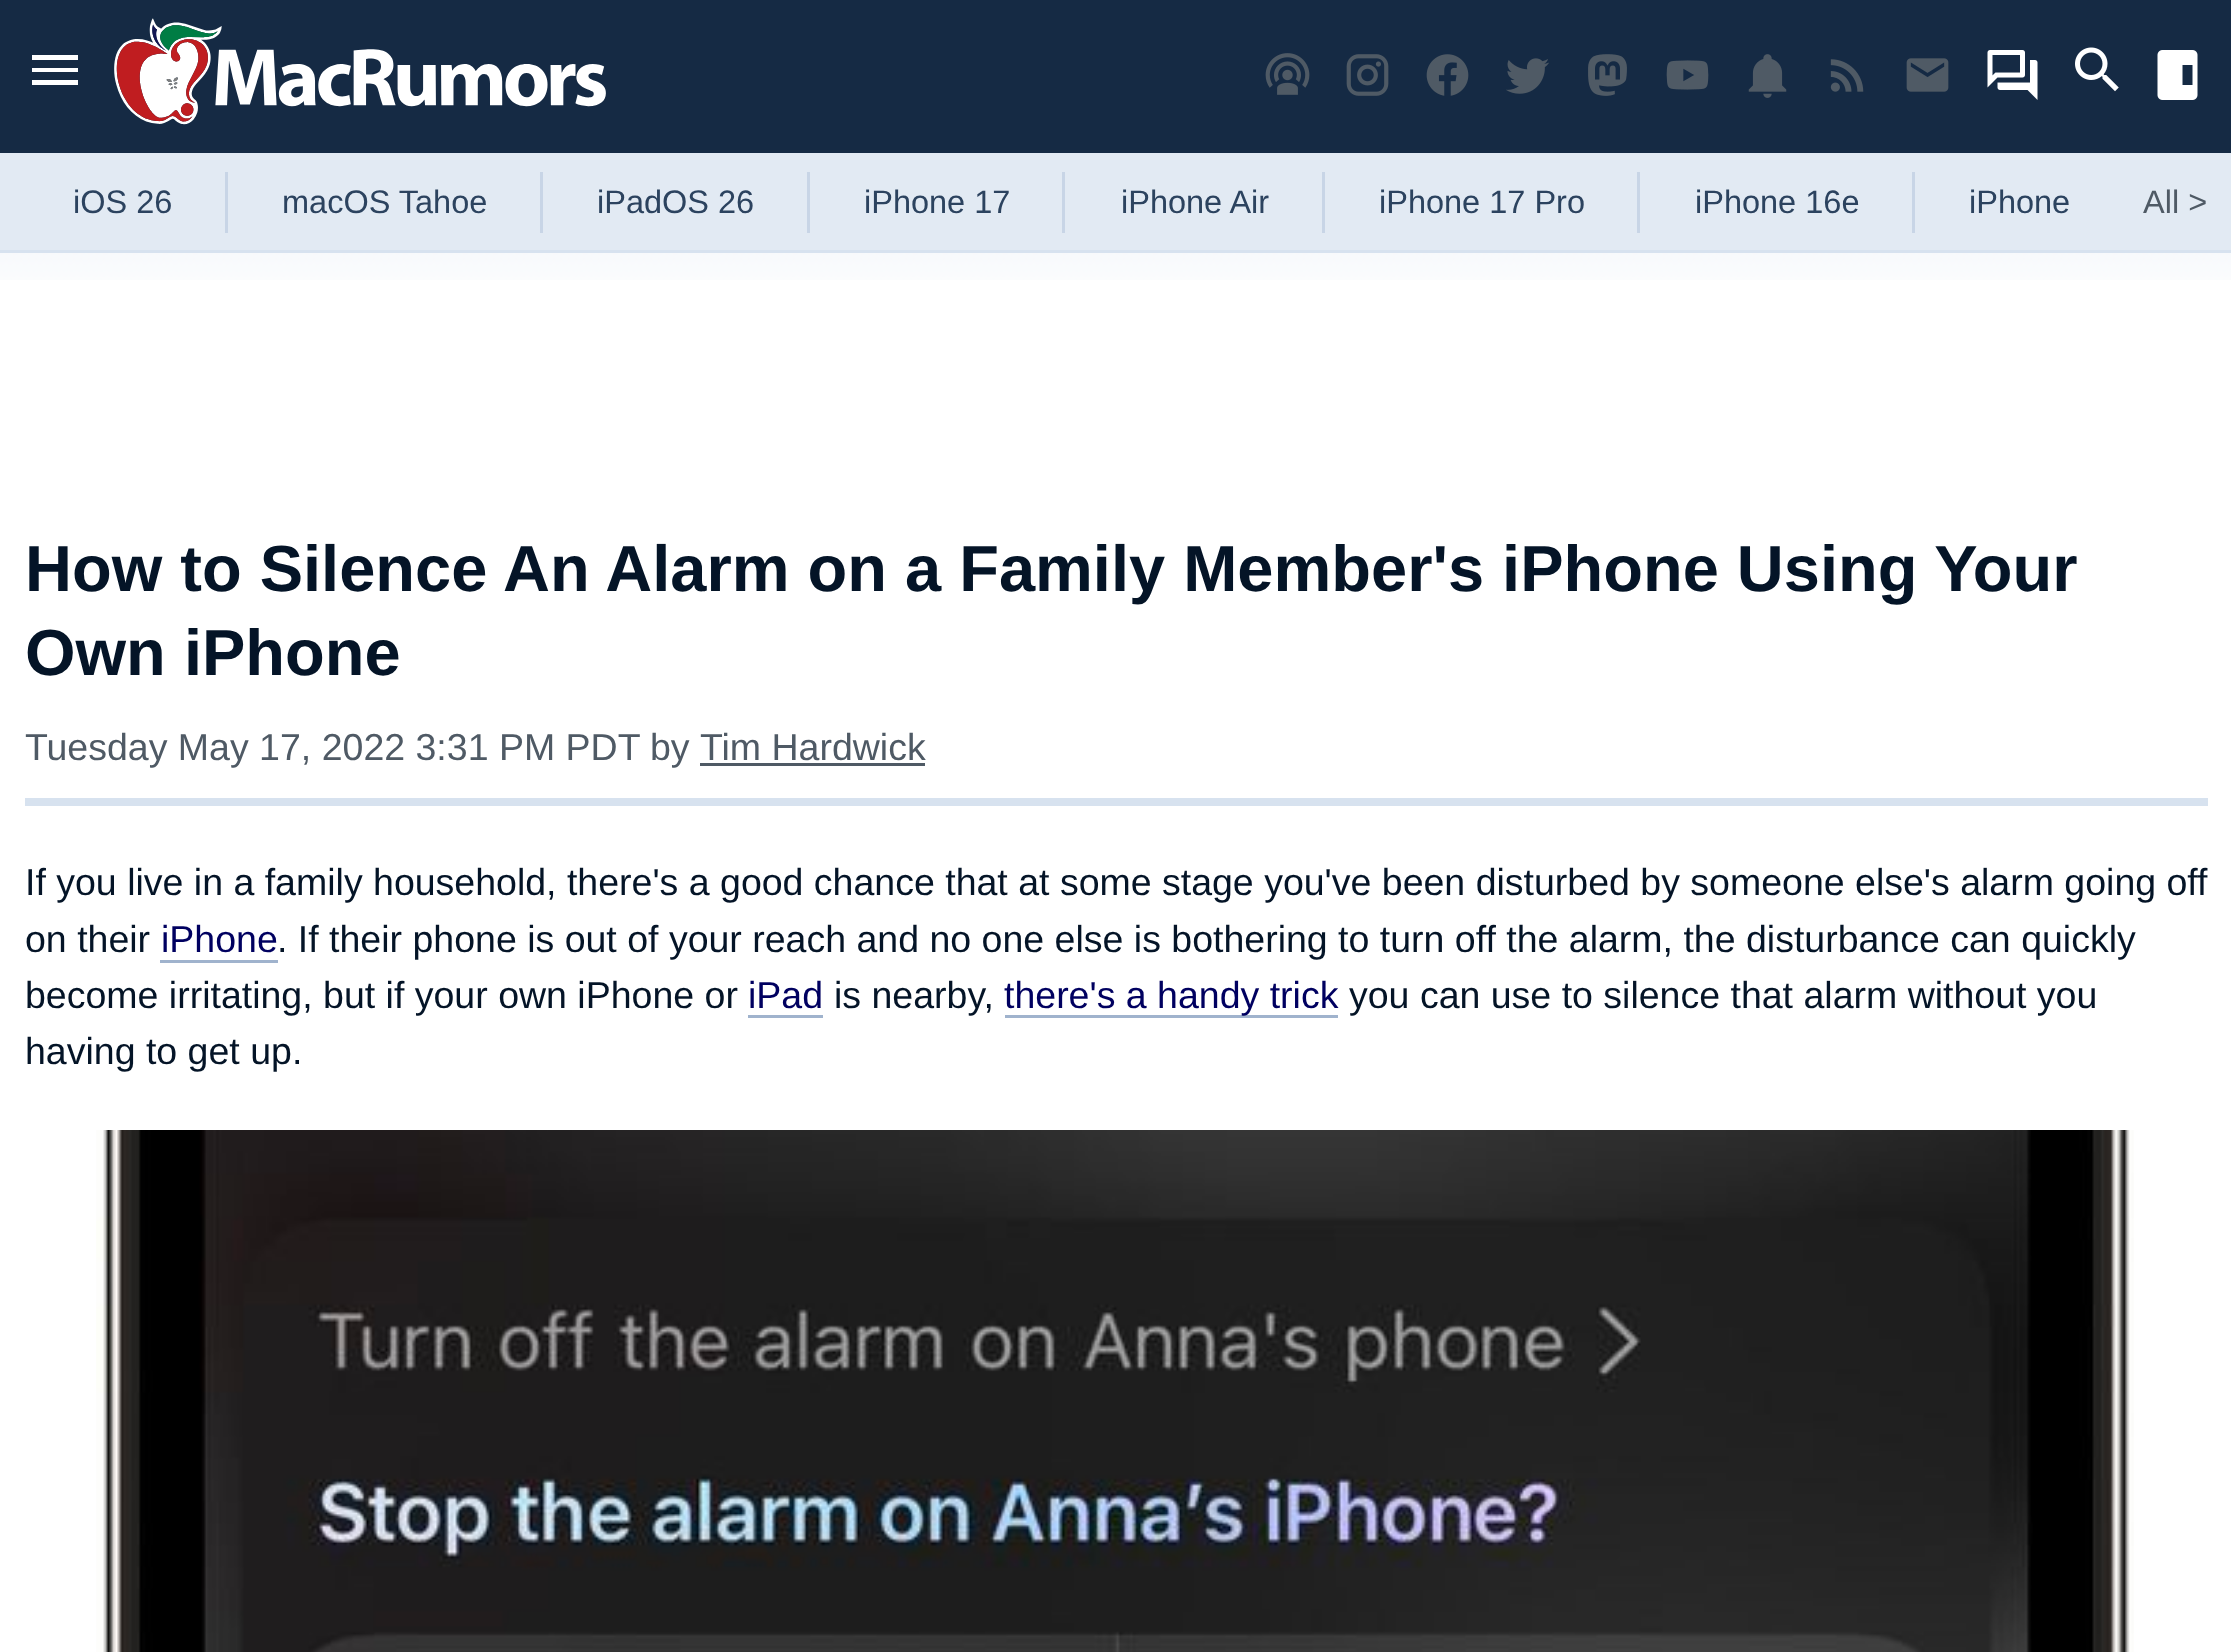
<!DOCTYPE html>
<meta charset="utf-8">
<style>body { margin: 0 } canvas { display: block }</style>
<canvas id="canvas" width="2231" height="1652"></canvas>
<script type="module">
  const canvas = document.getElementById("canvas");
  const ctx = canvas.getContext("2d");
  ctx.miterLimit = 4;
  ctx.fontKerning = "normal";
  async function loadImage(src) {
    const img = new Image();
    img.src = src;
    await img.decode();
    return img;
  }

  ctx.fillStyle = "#ffffff";
  ctx.fillRect(0, 0, 2231, 1652);
  ctx.drawImage(await loadImage("img1.png"), 0, 253, 2231, 27);
  ctx.fillStyle = "#152a44";
  ctx.fillRect(0, 0, 2231, 153);
  ctx.fillStyle = "#ffffff";
  ctx.beginPath();
  ctx.moveTo(32, 55);
  ctx.lineTo(78, 55);
  ctx.lineTo(78, 60);
  ctx.lineTo(32, 60);
  ctx.lineTo(32, 55);
  ctx.moveTo(32, 68);
  ctx.lineTo(78, 68);
  ctx.lineTo(78, 72);
  ctx.lineTo(32, 72);
  ctx.lineTo(32, 68);
  ctx.moveTo(32, 80);
  ctx.lineTo(78, 80);
  ctx.lineTo(78, 85);
  ctx.lineTo(32, 85);
  ctx.closePath();
  ctx.fill();
  ctx.drawImage(await loadImage("img2.png"), 114, 18, 492, 107);
  ctx.drawImage(await loadImage("img3.png"), 1265, 53, 45, 42);
  ctx.drawImage(await loadImage("img4.png"), 1346, 54, 43, 42);
  ctx.drawImage(await loadImage("img5.png"), 1426, 54, 43, 42);
  ctx.drawImage(await loadImage("img6.png"), 1506, 58, 43, 36);
  ctx.drawImage(await loadImage("img7.png"), 1588, 54, 39, 42);
  ctx.drawImage(await loadImage("img8.png"), 1666, 60, 43, 30);
  ctx.drawImage(await loadImage("img9.png"), 1748, 54, 39, 44);
  ctx.drawImage(await loadImage("img10.png"), 1830, 59, 34, 33);
  ctx.drawImage(await loadImage("img11.png"), 1906, 58, 43, 34);
  ctx.drawImage(await loadImage("img12.png"), 1987, 50, 51, 50);
  ctx.drawImage(await loadImage("img13.png"), 2075, 47, 44, 45);
  ctx.drawImage(await loadImage("img14.png"), 2157, 50, 41, 50);
  ctx.fillStyle = "#e2eaf3";
  ctx.fillRect(0, 153, 2231, 97);
  ctx.fillStyle = "#d7e2ef";
  ctx.fillRect(0, 250, 2231, 3);
  ctx.fillStyle = "#c8d5e6";
  ctx.fillRect(225, 172, 3, 61);
  ctx.font = "32.5px Liberation Sans";
  ctx.fillStyle = "#2c435f";
  ctx.fillText("iOS 26", 73, 213);
  ctx.fillStyle = "#c8d5e6";
  ctx.fillRect(540, 172, 3, 61);
  ctx.fillStyle = "#2c435f";
  ctx.fillText("macOS Tahoe", 282, 213);
  ctx.fillStyle = "#c8d5e6";
  ctx.fillRect(807, 172, 3, 61);
  ctx.fillStyle = "#2c435f";
  ctx.fillText("iPadOS 26", 597, 213);
  ctx.fillStyle = "#c8d5e6";
  ctx.fillRect(1062, 172, 3, 61);
  ctx.fillStyle = "#2c435f";
  ctx.fillText("iPhone 17", 864, 213);
  ctx.fillStyle = "#c8d5e6";
  ctx.fillRect(1322, 172, 3, 61);
  ctx.fillStyle = "#2c435f";
  ctx.fillText("iPhone Air", 1121, 213);
  ctx.fillStyle = "#c8d5e6";
  ctx.fillRect(1637, 172, 3, 61);
  ctx.fillStyle = "#2c435f";
  ctx.fillText("iPhone 17 Pro", 1379, 213);
  ctx.fillStyle = "#c8d5e6";
  ctx.fillRect(1912, 172, 3, 61);
  ctx.fillStyle = "#2c435f";
  ctx.fillText("iPhone 16e", 1695, 213);
  ctx.fillText("iPhone", 1969, 213);
  ctx.fillStyle = "#4f5a65";
  ctx.fillText("All >", 2143, 213);
  ctx.fillStyle = "#d7e2ef";
  ctx.fillRect(25, 798, 2183, 8);
  ctx.font = "bold 65px Liberation Sans";
  ctx.fillStyle = "#041427";
  ctx.fillText("How to Silence An Alarm on a Family Member's iPhone Using Your", 25, 591);
  ctx.fillText("Own iPhone", 25, 675);
  ctx.font = "37.5px Liberation Sans";
  ctx.fillStyle = "#4f5a65";
  ctx.fillText("Tuesday May 17, 2022 3:31 PM PDT", 25, 760);
  ctx.fillText("by", 650, 760);
  ctx.fillText("Tim Hardwick", 700, 760);
  ctx.fillRect(700, 763, 225, 3);
  ctx.fillStyle = "#041427";
  ctx.fillText("If you live in a family household, there's a good chance that at some stage you've been disturbed by someone else's alarm going off", 25, 895);
  ctx.fillText("on their", 25, 952);
  ctx.fillStyle = "#000060";
  ctx.fillText("iPhone", 161, 952);
  ctx.fillStyle = "#a0b3cd";
  ctx.fillRect(160, 960, 118, 3);
  ctx.fillStyle = "#041427";
  ctx.fillText(". If their phone is out of your reach and no one else is bothering to turn off the alarm, the disturbance can quickly", 277, 952);
  ctx.fillText("become irritating, but if your own ‌iPhone‌ or", 25, 1008);
  ctx.fillStyle = "#000060";
  ctx.fillText("iPad", 748, 1008);
  ctx.fillStyle = "#a0b3cd";
  ctx.fillRect(748, 1015, 75, 3);
  ctx.fillStyle = "#041427";
  ctx.fillText("is nearby,", 834, 1008);
  ctx.fillStyle = "#a0b3cd";
  ctx.fillRect(1005, 1015, 333, 3);
  ctx.fillStyle = "#000060";
  ctx.fillText("there's a handy trick", 1004, 1008);
  ctx.fillStyle = "#041427";
  ctx.fillText("you can use to silence that alarm without you", 1349, 1008);
  ctx.fillText("having to get up.", 25, 1064);
  ctx.drawImage(await loadImage("img15.png"), 96, 1130, 2038, 522);
</script>
